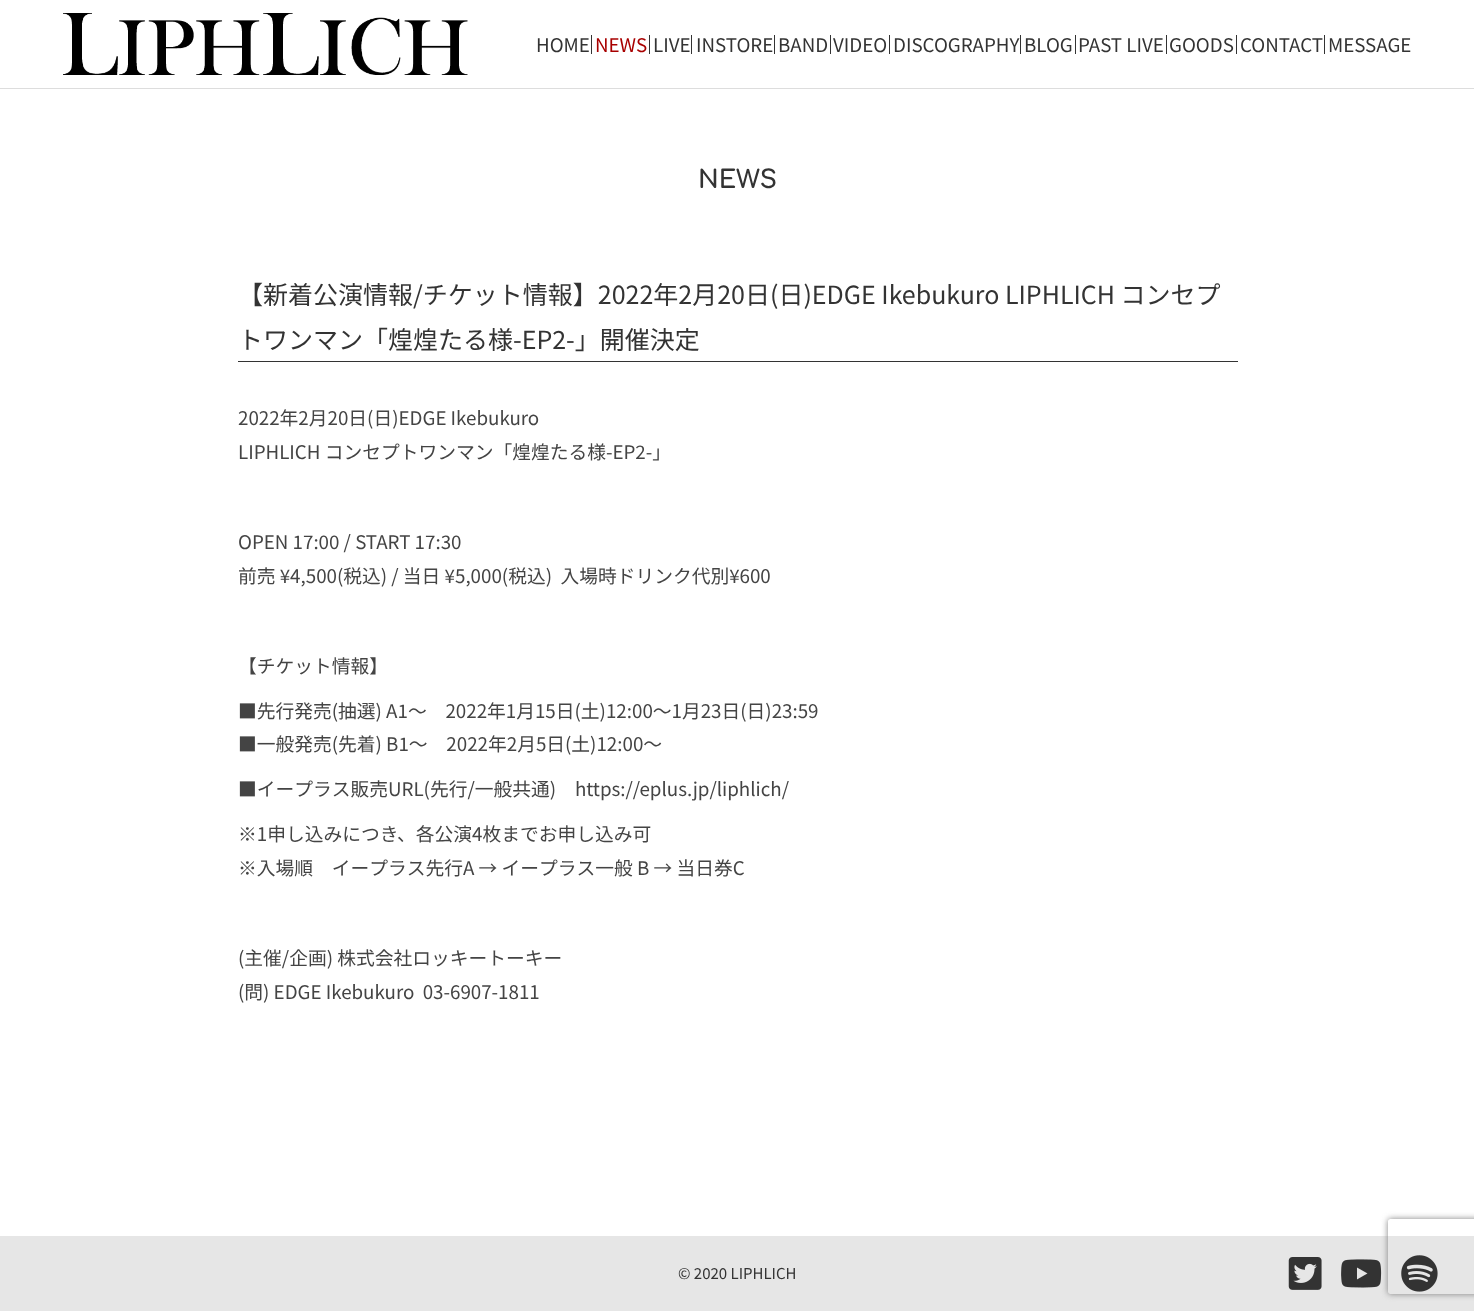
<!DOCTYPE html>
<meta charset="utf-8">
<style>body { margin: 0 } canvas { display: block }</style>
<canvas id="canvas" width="1474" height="1311"></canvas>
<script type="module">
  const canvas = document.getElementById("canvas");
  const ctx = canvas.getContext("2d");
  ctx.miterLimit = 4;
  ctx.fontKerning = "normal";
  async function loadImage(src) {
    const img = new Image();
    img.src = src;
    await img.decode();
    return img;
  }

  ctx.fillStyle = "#ffffff";
  ctx.fillRect(0, 0, 1474, 1311);
  ctx.fillStyle = "#dddddd";
  ctx.fillRect(0, 88, 1474, 1);
  ctx.drawImage(await loadImage("img1.png"), 63, 13, 405, 62);
  ctx.fillStyle = "#333333";
  ctx.fillRect(591, 35, 1, 19);
  ctx.font = "100 18.75px Noto Sans JP";
  ctx.fillText("HOME", 536, 52);
  ctx.fillRect(649, 35, 1, 19);
  ctx.fillStyle = "#a80000";
  ctx.fillText("NEWS", 595, 52);
  ctx.fillStyle = "#333333";
  ctx.fillRect(691, 35, 1, 19);
  ctx.fillText("LIVE", 653, 52);
  ctx.fillRect(774, 35, 1, 19);
  ctx.fillText("INSTORE", 696, 52);
  ctx.fillRect(830, 35, 1, 19);
  ctx.fillText("BAND", 778, 52);
  ctx.fillRect(889, 35, 1, 19);
  ctx.fillText("VIDEO", 833, 52);
  ctx.fillRect(1020, 35, 1, 19);
  ctx.fillText("DISCOGRAPHY", 893, 52);
  ctx.fillRect(1075, 35, 1, 19);
  ctx.fillText("BLOG", 1024, 52);
  ctx.fillRect(1166, 35, 1, 19);
  ctx.fillText("PAST LIVE", 1078, 52);
  ctx.fillRect(1236, 35, 1, 19);
  ctx.fillText("GOODS", 1169, 52);
  ctx.fillRect(1324, 35, 1, 19);
  ctx.fillText("CONTACT", 1240, 52);
  ctx.fillText("MESSAGE", 1328, 52);
  ctx.font = "bold 25px Comfortaa";
  ctx.fillText("NEWS", 698, 188);
  ctx.fillRect(238, 361, 1000, 1);
  ctx.font = "100 25px Noto Sans JP";
  ctx.fillText("【新着公演情報/チケット情報】2022年2月20日(日)EDGE Ikebukuro LIPHLICH コンセプ", 238, 304);
  ctx.fillText("トワンマン「煌煌たる様-EP2-」開催決定", 238, 349);
  ctx.font = "100 18.75px Noto Sans JP";
  ctx.fillStyle = "#444444";
  ctx.fillText("2022年2月20日(日)EDGE Ikebukuro", 238, 425);
  ctx.fillText("LIPHLICH コンセプトワンマン「煌煌たる様-EP2-」", 238, 459);
  ctx.fillText("OPEN 17:00 / START 17:30", 238, 549);
  ctx.fillText("前売 ¥4,500(税込) / 当日 ¥5,000(税込)  入場時ドリンク代別¥600", 238, 583);
  ctx.fillText("【チケット情報】", 238, 673);
  ctx.fillText("■先行発売(抽選) A1〜　2022年1月15日(土)12:00～1月23日(日)23:59", 238, 718);
  ctx.fillText("■一般発売(先着) B1〜　2022年2月5日(土)12:00～", 238, 751);
  ctx.fillText("■イープラス販売URL(先行/一般共通)　https://eplus.jp/liphlich/", 238, 796);
  ctx.fillText("※1申し込みにつき、各公演4枚までお申し込み可", 238, 841);
  ctx.fillText("※入場順　イープラス先行A → イープラス一般 B → 当日券C", 238, 875);
  ctx.fillText("(主催/企画) 株式会社ロッキートーキー", 238, 965);
  ctx.fillText("(問) EDGE Ikebukuro  03-6907-1811", 238, 999);
  ctx.fillStyle = "#e6e6e6";
  ctx.fillRect(0, 1236, 1474, 75);
  ctx.font = "100 15px Noto Sans JP";
  ctx.fillStyle = "#333333";
  ctx.fillText("© 2020 LIPHLICH", 678, 1279);
  ctx.drawImage(await loadImage("img2.png"), 1288, 1257, 34, 33);
  ctx.drawImage(await loadImage("img3.png"), 1341, 1259, 41, 29);
  ctx.drawImage(await loadImage("img4.png"), 1401, 1255, 37, 37);
  ctx.save();
  ctx.beginPath();
  ctx.moveTo(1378, 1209);
  ctx.lineTo(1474, 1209);
  ctx.lineTo(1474, 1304);
  ctx.lineTo(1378, 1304);
  ctx.closePath();
  ctx.moveTo(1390.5, 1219);
  ctx.lineTo(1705.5, 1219);
  ctx.bezierCurveTo(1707, 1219, 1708, 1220, 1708, 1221.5);
  ctx.lineTo(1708, 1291.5);
  ctx.bezierCurveTo(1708, 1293, 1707, 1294, 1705.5, 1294);
  ctx.lineTo(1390.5, 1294);
  ctx.bezierCurveTo(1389, 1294, 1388, 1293, 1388, 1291.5);
  ctx.lineTo(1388, 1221.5);
  ctx.bezierCurveTo(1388, 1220, 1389, 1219, 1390.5, 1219);
  ctx.closePath();
  ctx.clip("evenodd");
  ctx.fillStyle = "#808080";
  ctx.filter = "blur(3px)";
  ctx.beginPath();
  ctx.roundRect(1388, 1219, 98, 75, 2.5);
  ctx.fill();
  ctx.filter = "none";
  ctx.restore();
</script>
